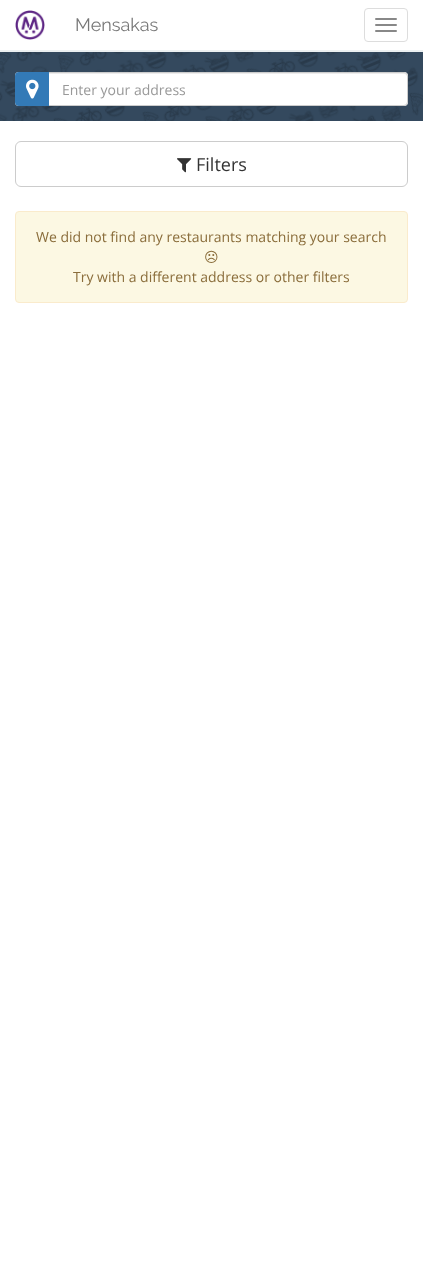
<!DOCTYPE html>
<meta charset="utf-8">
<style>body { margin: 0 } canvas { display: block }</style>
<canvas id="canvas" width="423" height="1278"></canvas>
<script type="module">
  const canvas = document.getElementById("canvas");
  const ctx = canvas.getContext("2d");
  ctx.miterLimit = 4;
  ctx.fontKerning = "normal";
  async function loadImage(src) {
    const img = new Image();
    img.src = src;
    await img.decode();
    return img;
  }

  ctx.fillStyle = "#ffffff";
  ctx.fillRect(0, 0, 423, 1278);
  ctx.fillStyle = "#ecf0f1";
  ctx.fillRect(0, 50, 423, 2);
  ctx.drawImage(await loadImage("img1.png"), 15, 10, 30, 30);
  ctx.font = "18px Raleway";
  ctx.fillStyle = "#777777";
  ctx.fillText("Mensakas", 75, 31);
  ctx.beginPath();
  ctx.roundRect(364.5, 8.5, 43, 33, 3.5);
  ctx.strokeStyle = "#dddddd";
  ctx.stroke();
  ctx.fillStyle = "#888888";
  ctx.beginPath();
  ctx.roundRect(375, 18, 22, 2, 1);
  ctx.fill();
  ctx.beginPath();
  ctx.roundRect(375, 24, 22, 2, 1);
  ctx.fill();
  ctx.beginPath();
  ctx.roundRect(375, 30, 22, 2, 1);
  ctx.fill();
  ctx.drawImage(await loadImage("img2.png"), 0, 52, 423, 69);
  ctx.fillStyle = "#ffffff";
  ctx.beginPath();
  ctx.roundRect(15, 72, 393, 34, 4);
  ctx.fill();
  ctx.fillStyle = "#ececec";
  ctx.beginPath();
  ctx.moveTo(19, 74);
  ctx.lineTo(404, 74);
  ctx.bezierCurveTo(406, 74, 407, 75, 407, 77);
  ctx.bezierCurveTo(407, 75, 406, 73, 404, 73);
  ctx.lineTo(19, 73);
  ctx.lineTo(17, 74);
  ctx.lineTo(16, 77);
  ctx.bezierCurveTo(16, 75, 17, 74, 19, 74);
  ctx.closePath();
  ctx.fill();
  ctx.beginPath();
  ctx.roundRect(15.5, 72.5, 392, 33, 3.5);
  ctx.strokeStyle = "#cccccc";
  ctx.stroke();
  ctx.fillStyle = "#337ab7";
  ctx.beginPath();
  ctx.roundRect(15, 72, 34, 34, [4, 0, 0, 4]);
  ctx.fill();
  ctx.drawImage(await loadImage("img3.png"), 26, 79, 13, 20);
  ctx.font = "14px Open Sans";
  ctx.fillStyle = "#999999";
  ctx.fillText("Enter your address", 62, 95);
  ctx.beginPath();
  ctx.roundRect(15.5, 141.5, 392, 45, 5.5);
  ctx.stroke();
  ctx.drawImage(await loadImage("img4.png"), 177, 158, 15, 15);
  ctx.font = "18px Open Sans";
  ctx.fillStyle = "#333333";
  ctx.fillText("Filters", 196, 171);
  ctx.fillStyle = "#fcf8e3";
  ctx.beginPath();
  ctx.roundRect(15.5, 211.5, 392, 91, 3.5);
  ctx.fill();
  ctx.strokeStyle = "#faebcc";
  ctx.stroke();
  ctx.font = "14px Open Sans";
  ctx.fillStyle = "#8a6d3b";
  ctx.fillText("We did not find any restaurants matching your search", 36, 242);
  ctx.font = "14px DejaVu Sans";
  ctx.fillText("☹", 204, 262);
  ctx.font = "14px Open Sans";
  ctx.fillText("Try with a different address or other filters", 73, 282);
</script>
